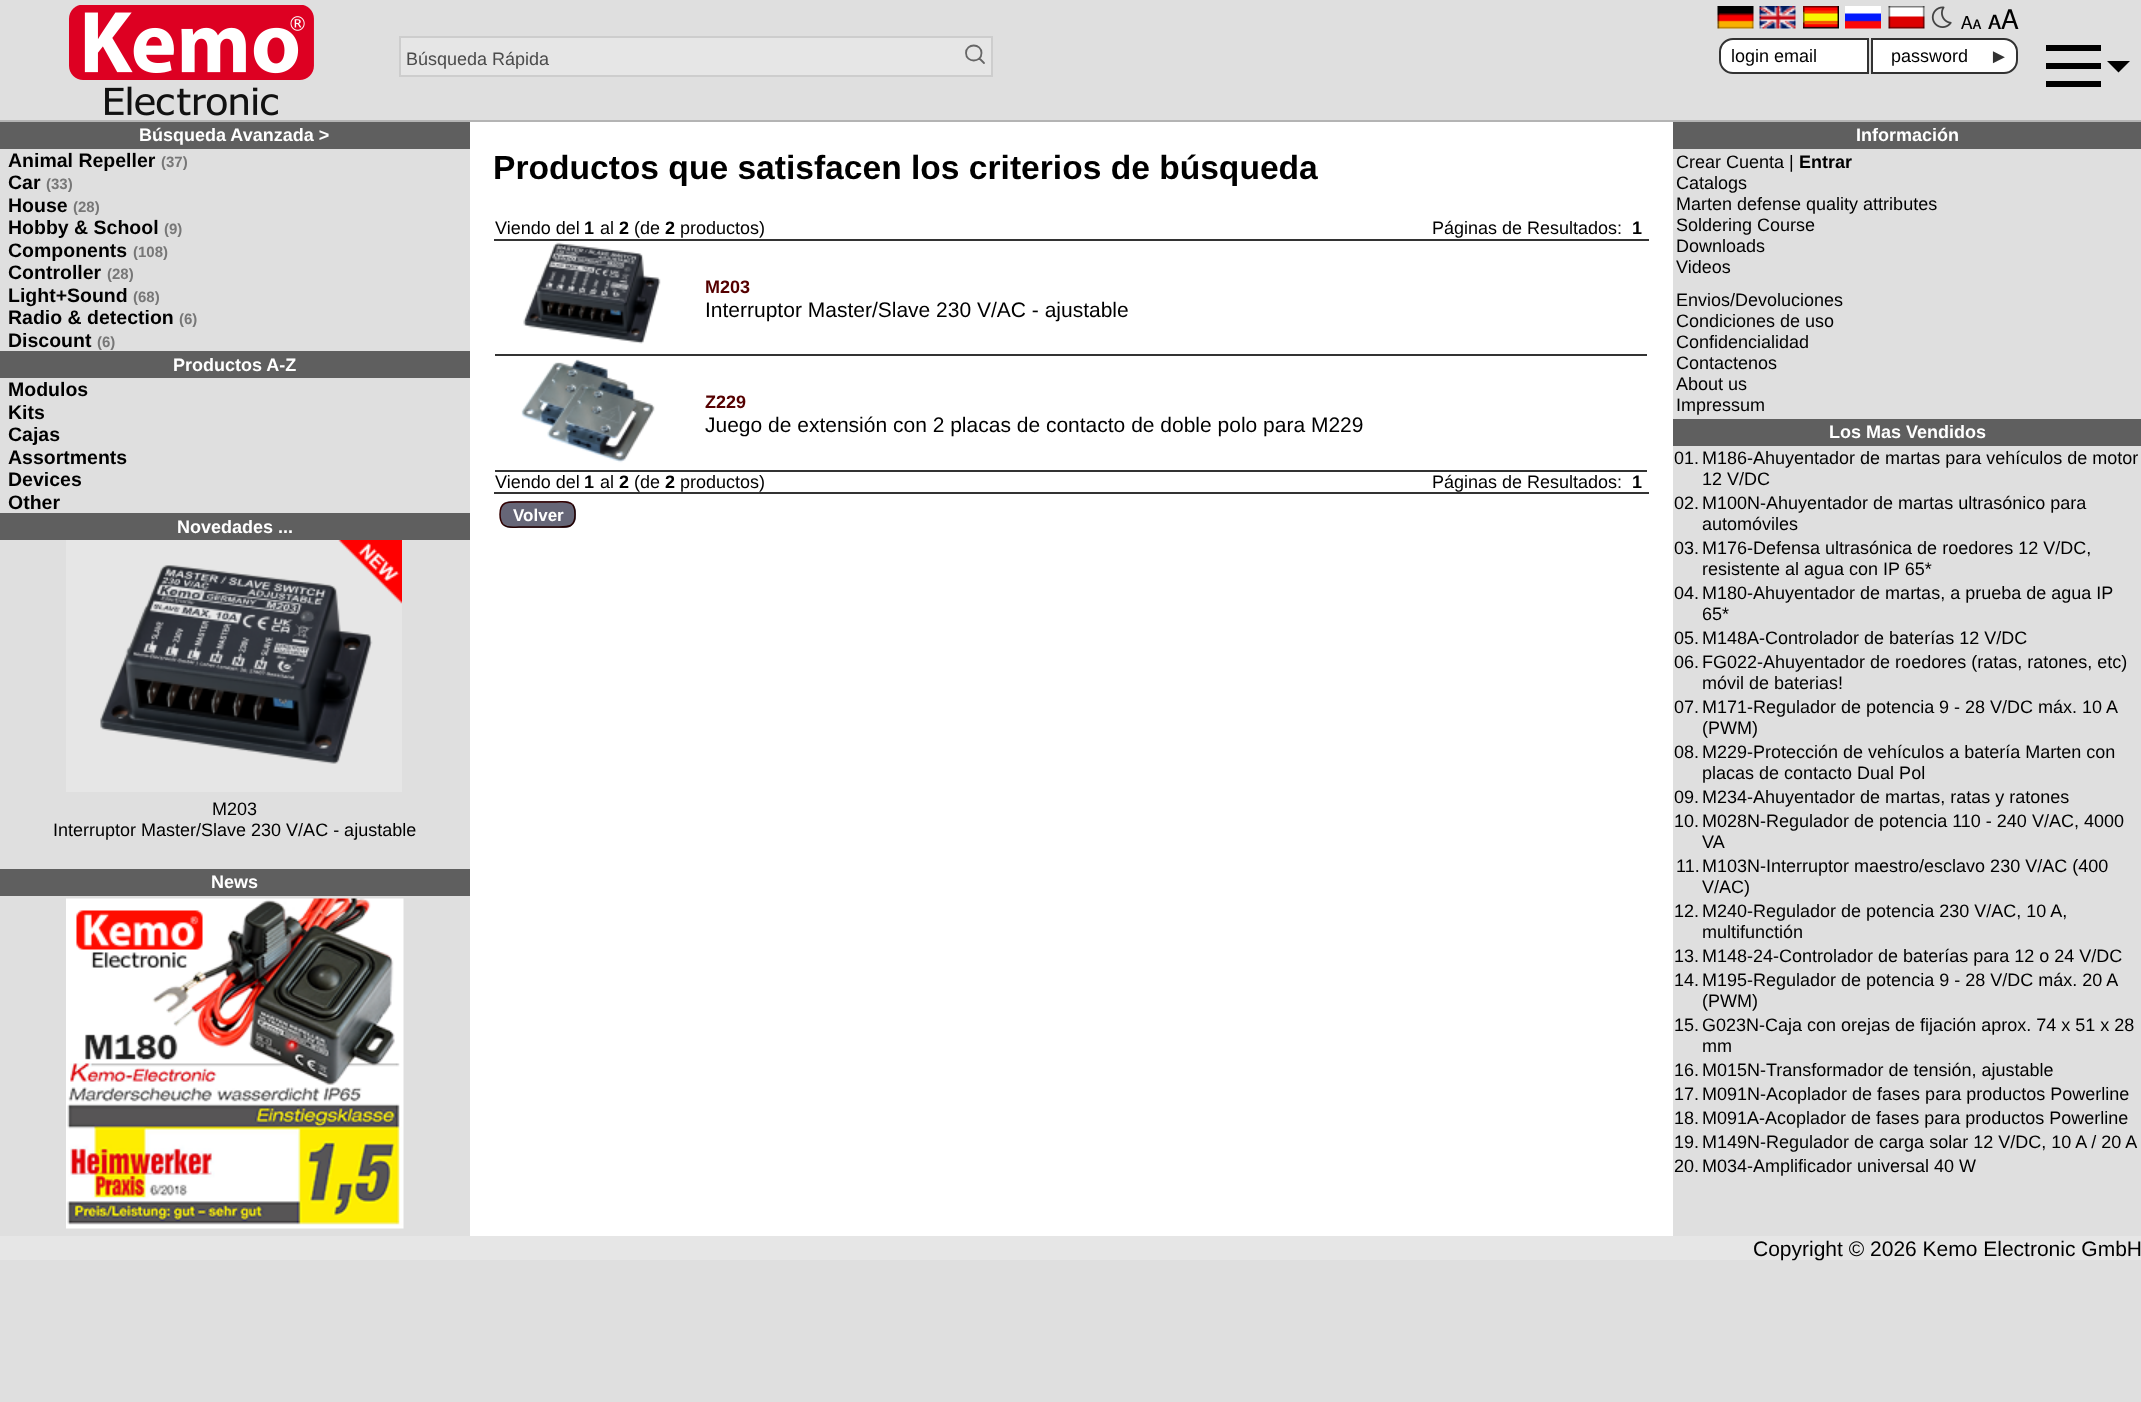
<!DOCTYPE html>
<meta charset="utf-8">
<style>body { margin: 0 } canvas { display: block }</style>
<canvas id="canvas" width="2141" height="1402"></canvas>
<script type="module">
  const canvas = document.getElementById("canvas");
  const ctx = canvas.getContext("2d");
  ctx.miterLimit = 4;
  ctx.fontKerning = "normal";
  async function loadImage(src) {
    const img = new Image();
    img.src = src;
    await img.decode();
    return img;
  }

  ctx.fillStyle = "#dfdfdf";
  ctx.fillRect(0, 0, 2141, 1402);
  ctx.fillStyle = "#b4b4b4";
  ctx.fillRect(0, 120, 2141, 2);
  ctx.drawImage(await loadImage("img1.png"), 69, 5, 245, 111);
  ctx.fillStyle = "#e6e6e6";
  ctx.beginPath();
  ctx.rect(400, 37, 592, 39);
  ctx.fill();
  ctx.strokeStyle = "#cdcdcd";
  ctx.lineWidth = 2;
  ctx.stroke();
  ctx.font = "18px Liberation Sans";
  ctx.fillStyle = "#4b4b4b";
  ctx.fillText("Búsqueda Rápida", 406, 65);
  ctx.beginPath();
  ctx.moveTo(979.5, 58.5);
  ctx.lineTo(984, 63);
  ctx.moveTo(981.5, 53);
  ctx.bezierCurveTo(981.5, 63, 966, 63, 966, 53);
  ctx.bezierCurveTo(966, 43, 981.5, 43, 981.5, 53);
  ctx.closePath();
  ctx.strokeStyle = "#666666";
  ctx.lineWidth = 1.8;
  ctx.lineCap = "round";
  ctx.lineJoin = "round";
  ctx.stroke();
  ctx.drawImage(await loadImage("img2.png"), 1717, 6, 37, 23);
  ctx.drawImage(await loadImage("img3.png"), 1759, 6, 37, 23);
  ctx.drawImage(await loadImage("img4.png"), 1803, 6, 36, 23);
  ctx.drawImage(await loadImage("img5.png"), 1845, 6, 36, 23);
  ctx.drawImage(await loadImage("img6.png"), 1888, 6, 37, 23);
  ctx.drawImage(await loadImage("img7.png"), 1931, 6, 21, 22);
  ctx.font = "18px FreeSans";
  ctx.fillStyle = "#000000";
  ctx.fillText("🗛", 1961, 29);
  ctx.font = "27px FreeSans";
  ctx.fillText("🗚", 1988, 29);
  ctx.fillStyle = "#ffffff";
  ctx.beginPath();
  ctx.roundRect(1720, 39, 148, 34, [13, 0, 0, 13]);
  ctx.fill();
  ctx.strokeStyle = "#323232";
  ctx.lineWidth = 2;
  ctx.lineJoin = "miter";
  ctx.stroke();
  ctx.font = "18px Liberation Sans";
  ctx.fillStyle = "#000000";
  ctx.fillText("login email", 1731, 62);
  ctx.fillStyle = "#ffffff";
  ctx.beginPath();
  ctx.roundRect(1872, 39, 145, 34, [0, 13, 13, 0]);
  ctx.fill();
  ctx.stroke();
  ctx.fillStyle = "#000000";
  ctx.fillText("password", 1891, 62);
  ctx.font = "20px Liberation Sans";
  ctx.fillStyle = "#323232";
  ctx.fillText("►", 1989, 63);
  ctx.fillStyle = "#000000";
  ctx.fillRect(2046, 45, 55, 6);
  ctx.fillRect(2046, 63, 55, 6);
  ctx.beginPath();
  ctx.moveTo(2107, 61);
  ctx.lineTo(2118.5, 72.5);
  ctx.lineTo(2130, 61);
  ctx.closePath();
  ctx.fill();
  ctx.fillRect(2046, 81, 55, 6);
  ctx.fillStyle = "#5f5f5f";
  ctx.fillRect(0, 122, 470, 27);
  ctx.font = "bold 18px Liberation Sans";
  ctx.fillStyle = "#ffffff";
  ctx.fillText("Búsqueda Avanzada >", 139, 141);
  ctx.font = "bold 19.5px Liberation Sans";
  ctx.fillStyle = "#000000";
  ctx.fillText("Animal Repeller", 8, 167);
  ctx.font = "bold 15px Liberation Sans";
  ctx.fillStyle = "#777777";
  ctx.fillText("(37)", 161, 167);
  ctx.font = "bold 19.5px Liberation Sans";
  ctx.fillStyle = "#000000";
  ctx.fillText("Car", 8, 189);
  ctx.font = "bold 15px Liberation Sans";
  ctx.fillStyle = "#777777";
  ctx.fillText("(33)", 46, 189);
  ctx.font = "bold 19.5px Liberation Sans";
  ctx.fillStyle = "#000000";
  ctx.fillText("House", 8, 212);
  ctx.font = "bold 15px Liberation Sans";
  ctx.fillStyle = "#777777";
  ctx.fillText("(28)", 73, 212);
  ctx.font = "bold 19.5px Liberation Sans";
  ctx.fillStyle = "#000000";
  ctx.fillText("Hobby & School", 8, 234);
  ctx.font = "bold 15px Liberation Sans";
  ctx.fillStyle = "#777777";
  ctx.fillText("(9)", 164, 234);
  ctx.font = "bold 19.5px Liberation Sans";
  ctx.fillStyle = "#000000";
  ctx.fillText("Components", 8, 257);
  ctx.font = "bold 15px Liberation Sans";
  ctx.fillStyle = "#777777";
  ctx.fillText("(108)", 133, 257);
  ctx.font = "bold 19.5px Liberation Sans";
  ctx.fillStyle = "#000000";
  ctx.fillText("Controller", 8, 279);
  ctx.font = "bold 15px Liberation Sans";
  ctx.fillStyle = "#777777";
  ctx.fillText("(28)", 107, 279);
  ctx.font = "bold 19.5px Liberation Sans";
  ctx.fillStyle = "#000000";
  ctx.fillText("Light+Sound", 8, 302);
  ctx.font = "bold 15px Liberation Sans";
  ctx.fillStyle = "#777777";
  ctx.fillText("(68)", 133, 302);
  ctx.font = "bold 19.5px Liberation Sans";
  ctx.fillStyle = "#000000";
  ctx.fillText("Radio & detection", 8, 324);
  ctx.font = "bold 15px Liberation Sans";
  ctx.fillStyle = "#777777";
  ctx.fillText("(6)", 179, 324);
  ctx.font = "bold 19.5px Liberation Sans";
  ctx.fillStyle = "#000000";
  ctx.fillText("Discount", 8, 347);
  ctx.font = "bold 15px Liberation Sans";
  ctx.fillStyle = "#777777";
  ctx.fillText("(6)", 97, 347);
  ctx.fillStyle = "#5f5f5f";
  ctx.fillRect(0, 351, 470, 27);
  ctx.font = "bold 18px Liberation Sans";
  ctx.fillStyle = "#ffffff";
  ctx.fillText("Productos A-Z", 173, 371);
  ctx.font = "bold 19.5px Liberation Sans";
  ctx.fillStyle = "#000000";
  ctx.fillText("Modulos", 8, 396);
  ctx.fillText("Kits", 8, 419);
  ctx.fillText("Cajas", 8, 441);
  ctx.fillText("Assortments", 8, 464);
  ctx.fillText("Devices", 8, 486);
  ctx.fillText("Other", 8, 509);
  ctx.fillStyle = "#5f5f5f";
  ctx.fillRect(0, 513, 470, 27);
  ctx.font = "bold 18px Liberation Sans";
  ctx.fillStyle = "#ffffff";
  ctx.fillText("Novedades ...", 177, 533);
  ctx.fillStyle = "#e6e6e6";
  ctx.fillRect(66, 540, 336, 252);
  ctx.drawImage(await loadImage("img8.png"), 100, 540, 302, 224);
  ctx.font = "18px Liberation Sans";
  ctx.fillStyle = "#000000";
  ctx.fillText("M203", 212, 815);
  ctx.fillText("Interruptor Master/Slave 230 V/AC - ajustable", 53, 836);
  ctx.fillStyle = "#5f5f5f";
  ctx.fillRect(0, 869, 470, 27);
  ctx.font = "bold 18px Liberation Sans";
  ctx.fillStyle = "#ffffff";
  ctx.fillText("News", 211, 888);
  ctx.drawImage(await loadImage("img9.png"), 66, 898, 338, 331);
  ctx.fillRect(470, 122, 1203, 1114);
  ctx.font = "bold 33.6px Liberation Sans";
  ctx.fillStyle = "#000000";
  ctx.fillText("Productos que satisfacen los criterios de búsqueda", 493, 179);
  ctx.fillStyle = "#333333";
  ctx.fillRect(494, 239, 1155, 2);
  ctx.font = "18px Liberation Sans";
  ctx.fillStyle = "#000000";
  ctx.fillText("Viendo del", 495, 234);
  ctx.font = "bold 18px Liberation Sans";
  ctx.fillText("1", 584, 234);
  ctx.font = "18px Liberation Sans";
  ctx.fillText("al", 600, 234);
  ctx.font = "bold 18px Liberation Sans";
  ctx.fillText("2", 619, 234);
  ctx.font = "18px Liberation Sans";
  ctx.fillText("(de", 634, 234);
  ctx.font = "bold 18px Liberation Sans";
  ctx.fillText("2", 665, 234);
  ctx.font = "18px Liberation Sans";
  ctx.fillText("productos)", 680, 234);
  ctx.fillText("Páginas de Resultados:", 1432, 234);
  ctx.font = "bold 18px Liberation Sans";
  ctx.fillText("1", 1632, 234);
  ctx.fillStyle = "#333333";
  ctx.fillRect(495, 354, 1152, 2);
  ctx.drawImage(await loadImage("img10.png"), 523, 242, 138, 102);
  ctx.fillStyle = "#550000";
  ctx.fillText("M203", 705, 293);
  ctx.font = "21px Liberation Sans";
  ctx.fillStyle = "#000000";
  ctx.fillText("Interruptor Master/Slave 230 V/AC - ajustable", 705, 317);
  ctx.fillStyle = "#333333";
  ctx.fillRect(495, 470, 1152, 2);
  ctx.drawImage(await loadImage("img11.png"), 521, 359, 134, 104);
  ctx.font = "bold 18px Liberation Sans";
  ctx.fillStyle = "#550000";
  ctx.fillText("Z229", 705, 408);
  ctx.font = "21px Liberation Sans";
  ctx.fillStyle = "#000000";
  ctx.fillText("Juego de extensión con 2 placas de contacto de doble polo para M229", 705, 432);
  ctx.fillStyle = "#333333";
  ctx.fillRect(494, 492, 1155, 2);
  ctx.font = "18px Liberation Sans";
  ctx.fillStyle = "#000000";
  ctx.fillText("Viendo del", 495, 488);
  ctx.font = "bold 18px Liberation Sans";
  ctx.fillText("1", 584, 488);
  ctx.font = "18px Liberation Sans";
  ctx.fillText("al", 600, 488);
  ctx.font = "bold 18px Liberation Sans";
  ctx.fillText("2", 619, 488);
  ctx.font = "18px Liberation Sans";
  ctx.fillText("(de", 634, 488);
  ctx.font = "bold 18px Liberation Sans";
  ctx.fillText("2", 665, 488);
  ctx.font = "18px Liberation Sans";
  ctx.fillText("productos)", 680, 488);
  ctx.fillText("Páginas de Resultados:", 1432, 488);
  ctx.font = "bold 18px Liberation Sans";
  ctx.fillText("1", 1632, 488);
  ctx.fillStyle = "#666677";
  ctx.beginPath();
  ctx.roundRect(500, 501, 76, 27, 11);
  ctx.fill();
  ctx.beginPath();
  ctx.moveTo(572.5, 504.5);
  ctx.bezierCurveTo(575, 507.5, 575, 511, 575, 514.5);
  ctx.bezierCurveTo(575, 528, 568, 527, 556, 527);
  ctx.lineTo(519, 527);
  ctx.bezierCurveTo(514, 527, 507.5, 528.5, 503, 524.5);
  ctx.strokeStyle = "#220000";
  ctx.lineWidth = 1.5;
  ctx.lineCap = "butt";
  ctx.stroke();
  ctx.beginPath();
  ctx.moveTo(503, 524.5);
  ctx.bezierCurveTo(500.5, 521.5, 500, 518, 500, 514.5);
  ctx.bezierCurveTo(500, 501, 507.5, 502, 519, 502);
  ctx.lineTo(556, 502);
  ctx.bezierCurveTo(561.5, 502, 568, 500.5, 572.5, 504.5);
  ctx.strokeStyle = "#330000";
  ctx.stroke();
  ctx.font = "bold 17px Liberation Sans";
  ctx.fillStyle = "#ffffff";
  ctx.fillText("Volver", 513, 521);
  ctx.fillStyle = "#5f5f5f";
  ctx.fillRect(1673, 122, 468, 27);
  ctx.font = "bold 18px Liberation Sans";
  ctx.fillStyle = "#ffffff";
  ctx.fillText("Información", 1856, 141);
  ctx.font = "18px Liberation Sans";
  ctx.fillStyle = "#000000";
  ctx.fillText("Crear Cuenta |", 1676, 168);
  ctx.font = "bold 18px Liberation Sans";
  ctx.fillText("Entrar", 1799, 168);
  ctx.font = "18px Liberation Sans";
  ctx.fillText("Catalogs", 1676, 189);
  ctx.fillText("Marten defense quality attributes", 1676, 210);
  ctx.fillText("Soldering Course", 1676, 231);
  ctx.fillText("Downloads", 1676, 252);
  ctx.fillText("Videos", 1676, 273);
  ctx.fillText("Envios/Devoluciones", 1676, 306);
  ctx.fillText("Condiciones de uso", 1676, 327);
  ctx.fillText("Confidencialidad", 1676, 348);
  ctx.fillText("Contactenos", 1676, 369);
  ctx.fillText("About us", 1676, 390);
  ctx.fillText("Impressum", 1676, 411);
  ctx.fillStyle = "#5f5f5f";
  ctx.fillRect(1673, 419, 468, 27);
  ctx.font = "bold 18px Liberation Sans";
  ctx.fillStyle = "#ffffff";
  ctx.fillText("Los Mas Vendidos", 1829, 438);
  ctx.font = "18px Liberation Sans";
  ctx.fillStyle = "#000000";
  ctx.fillText("01.", 1674, 464);
  ctx.fillText("M186-Ahuyentador de martas para vehículos de motor", 1702, 464);
  ctx.fillText("12 V/DC", 1702, 485);
  ctx.fillText("02.", 1674, 509);
  ctx.fillText("M100N-Ahuyentador de martas ultrasónico para", 1702, 509);
  ctx.fillText("automóviles", 1702, 530);
  ctx.fillText("03.", 1674, 554);
  ctx.fillText("M176-Defensa ultrasónica de roedores 12 V/DC,", 1702, 554);
  ctx.fillText("resistente al agua con IP 65*", 1702, 575);
  ctx.fillText("04.", 1674, 599);
  ctx.fillText("M180-Ahuyentador de martas, a prueba de agua IP", 1702, 599);
  ctx.fillText("65*", 1702, 620);
  ctx.fillText("05.", 1674, 644);
  ctx.fillText("M148A-Controlador de baterías 12 V/DC", 1702, 644);
  ctx.fillText("06.", 1674, 668);
  ctx.fillText("FG022-Ahuyentador de roedores (ratas, ratones, etc)", 1702, 668);
  ctx.fillText("móvil de baterias!", 1702, 689);
  ctx.fillText("07.", 1674, 713);
  ctx.fillText("M171-Regulador de potencia", 1702, 713);
  ctx.fillText("9 - 28 V/DC máx. 10 A", 1939, 713);
  ctx.fillText("(PWM)", 1702, 734);
  ctx.fillText("08.", 1674, 758);
  ctx.fillText("M229-Protección de vehículos a batería Marten con", 1702, 758);
  ctx.fillText("placas de contacto Dual Pol", 1702, 779);
  ctx.fillText("09.", 1674, 803);
  ctx.fillText("M234-Ahuyentador de martas, ratas y ratones", 1702, 803);
  ctx.fillText("10.", 1674, 827);
  ctx.fillText("M028N-Regulador de potencia 110 - 240 V/AC, 4000", 1702, 827);
  ctx.fillText("VA", 1702, 848);
  ctx.fillText("11.", 1676, 872);
  ctx.fillText("M103N-Interruptor maestro/esclavo 230 V/AC (400", 1702, 872);
  ctx.fillText("V/AC)", 1702, 893);
  ctx.fillText("12.", 1674, 917);
  ctx.fillText("M240-Regulador de potencia 230 V/AC, 10 A,", 1702, 917);
  ctx.fillText("multifunctión", 1702, 938);
  ctx.fillText("13.", 1674, 962);
  ctx.fillText("M148-24-Controlador de baterías para 12 o 24 V/DC", 1702, 962);
  ctx.fillText("14.", 1674, 986);
  ctx.fillText("M195-Regulador de potencia 9 - 28 V/DC máx. 20 A", 1702, 986);
  ctx.fillText("(PWM)", 1702, 1007);
  ctx.fillText("15.", 1674, 1031);
  ctx.fillText("G023N-Caja con orejas de fijación aprox. 74 x 51 x 28", 1702, 1031);
  ctx.fillText("mm", 1702, 1052);
  ctx.fillText("16.", 1674, 1076);
  ctx.fillText("M015N-Transformador de tensión, ajustable", 1702, 1076);
  ctx.fillText("17.", 1674, 1100);
  ctx.fillText("M091N-Acoplador de fases para productos Powerline", 1702, 1100);
  ctx.fillText("18.", 1674, 1124);
  ctx.fillText("M091A-Acoplador de fases para productos Powerline", 1702, 1124);
  ctx.fillText("19.", 1674, 1148);
  ctx.fillText("M149N-Regulador de carga solar 12 V/DC, 10 A / 20 A", 1702, 1148);
  ctx.fillText("20.", 1674, 1172);
  ctx.fillText("M034-Amplificador universal 40 W", 1702, 1172);
  ctx.fillStyle = "#e6e6e6";
  ctx.fillRect(0, 1236, 2141, 24);
  ctx.font = "21px Liberation Sans";
  ctx.fillStyle = "#000000";
  ctx.fillText("Copyright © 2026 Kemo Electronic GmbH", 1753, 1256);
</script>
